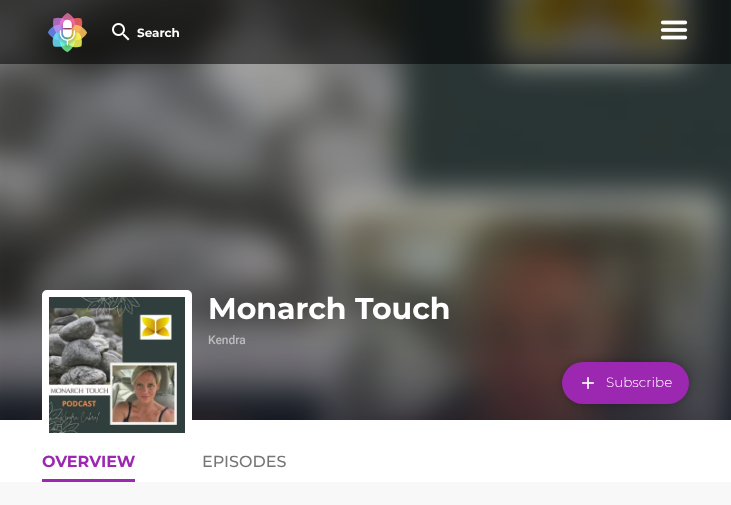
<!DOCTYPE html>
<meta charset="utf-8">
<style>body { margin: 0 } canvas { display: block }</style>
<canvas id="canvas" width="731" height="505"></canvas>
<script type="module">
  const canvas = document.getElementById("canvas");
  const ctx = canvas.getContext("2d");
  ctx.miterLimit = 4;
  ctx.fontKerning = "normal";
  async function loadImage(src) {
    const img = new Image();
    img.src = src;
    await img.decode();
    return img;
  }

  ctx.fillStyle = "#ffffff";
  ctx.fillRect(0, 0, 731, 505);
  ctx.drawImage(await loadImage("img4.png"), 0, 0, 731, 420);
  ctx.fillStyle = "rgba(0, 0, 0, 0.54)";
  ctx.fillRect(0, 0, 731, 64);
  ctx.drawImage(await loadImage("img1.png"), 47, 12, 40, 41);
  ctx.drawImage(await loadImage("img2.png"), 112, 23, 18, 18);
  ctx.font = "bold 12px Montserrat";
  ctx.fillStyle = "#ffffff";
  ctx.fillText("Search", 137, 37);
  ctx.drawImage(await loadImage("img3.png"), 660, 20, 28, 20);
  ctx.beginPath();
  ctx.roundRect(45.5, 293.5, 143, 143, 1.5);
  ctx.strokeStyle = "#ffffff";
  ctx.lineWidth = 7;
  ctx.stroke();
  ctx.drawImage(await loadImage("img5.png"), 49, 297, 136, 136);
  ctx.font = "bold 30px Montserrat";
  ctx.fillText("Monarch Touch", 208, 319);
  ctx.font = "500 12px Roboto";
  ctx.fillStyle = "#bcbcbe";
  ctx.fillText("Kendra", 208, 344);
  ctx.fillStyle = "rgba(0, 0, 0, 0.25)";
  ctx.filter = "blur(4px)";
  ctx.beginPath();
  ctx.roundRect(562, 362, 127, 42, 21);
  ctx.fill();
  ctx.filter = "none";
  ctx.fillStyle = "#9c27b0";
  ctx.beginPath();
  ctx.roundRect(562, 362, 127, 42, 21);
  ctx.fill();
  ctx.drawImage(await loadImage("img6.png"), 582, 377, 12, 12);
  ctx.font = "300 13.5px Montserrat";
  ctx.fillStyle = "#ffffff";
  ctx.fillText("Subscribe", 606, 387);
  ctx.fillStyle = "#9c27b0";
  ctx.fillRect(42, 479, 93, 3);
  ctx.font = "bold 16px Montserrat";
  ctx.fillText("OVERVIEW", 42, 467);
  ctx.font = "500 16px Montserrat";
  ctx.fillStyle = "#757575";
  ctx.fillText("EPISODES", 202, 467);
  ctx.fillStyle = "#f8f8f8";
  ctx.fillRect(0, 482, 731, 23);
</script>
